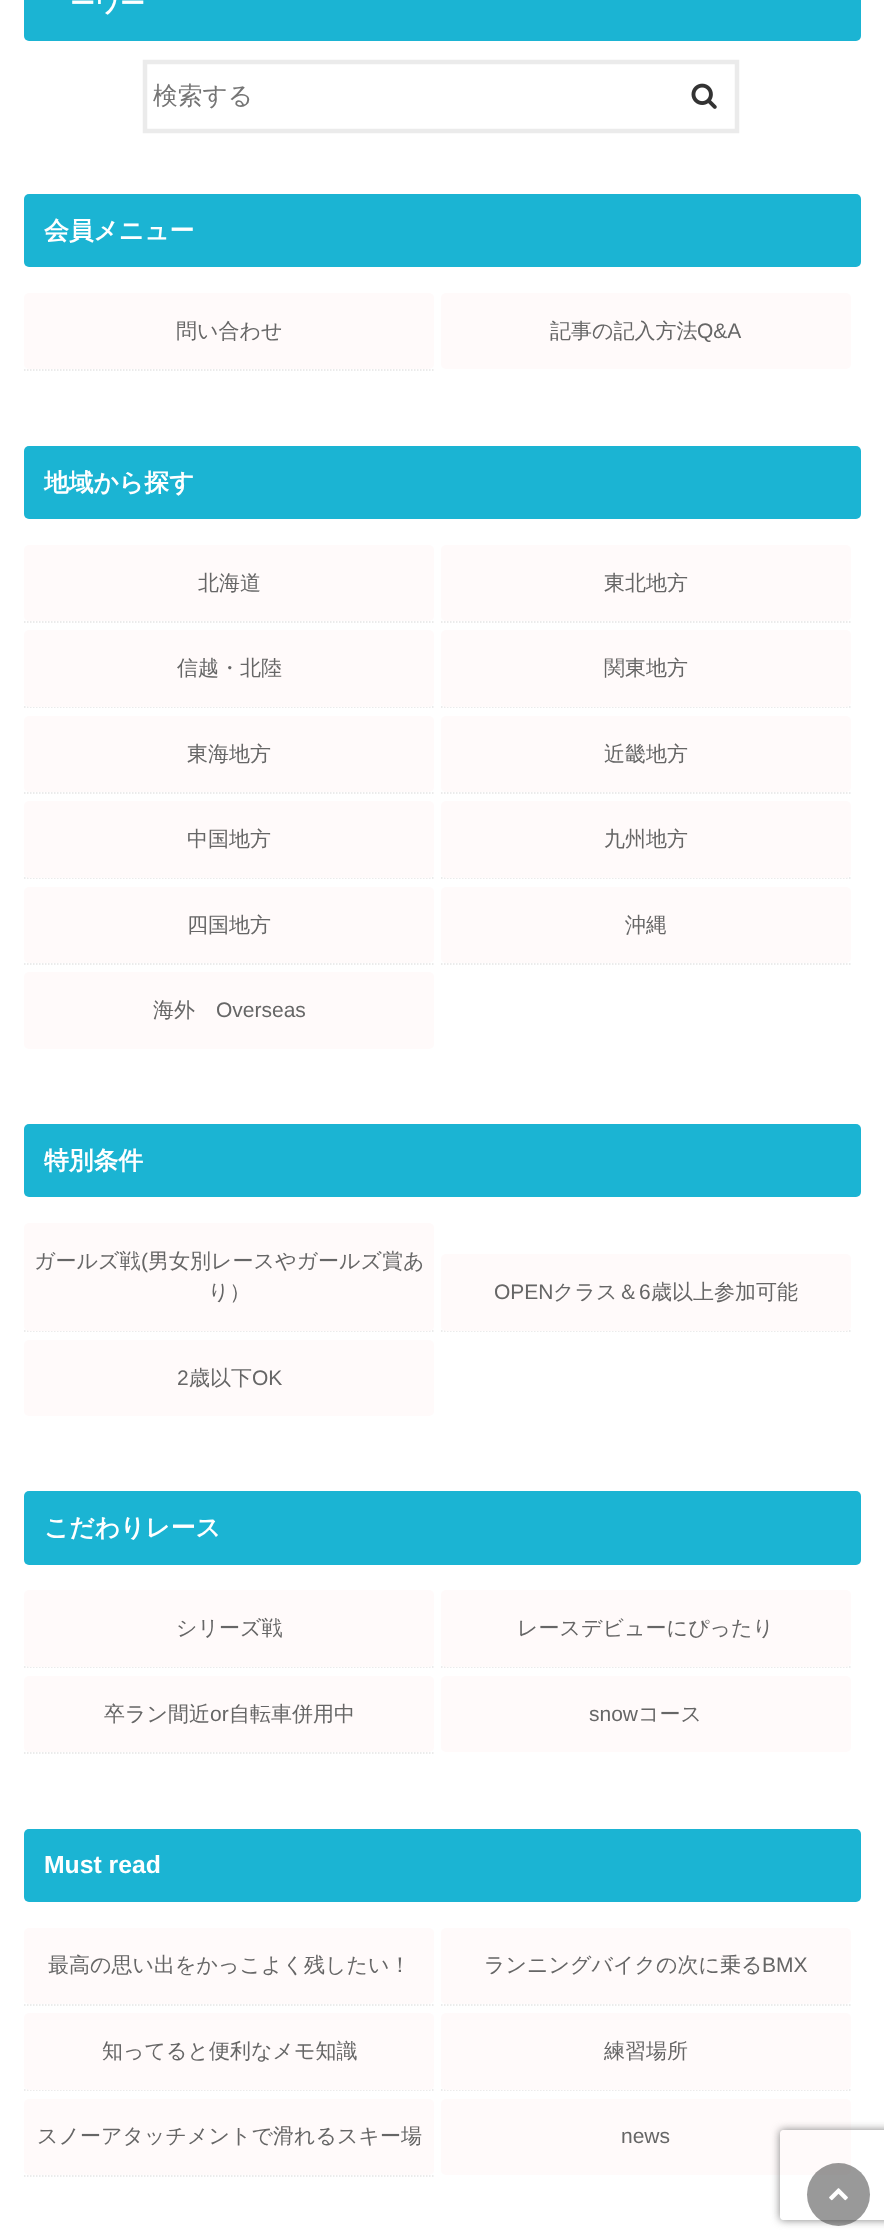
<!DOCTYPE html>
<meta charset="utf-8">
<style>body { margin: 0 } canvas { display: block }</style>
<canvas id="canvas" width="884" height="2240"></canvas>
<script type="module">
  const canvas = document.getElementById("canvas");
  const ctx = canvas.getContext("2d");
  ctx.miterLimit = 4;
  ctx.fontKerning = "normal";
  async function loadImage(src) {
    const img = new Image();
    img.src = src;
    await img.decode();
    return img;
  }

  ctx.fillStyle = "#ffffff";
  ctx.fillRect(0, 0, 884, 2240);
  ctx.fillStyle = "#1bb4d3";
  ctx.beginPath();
  ctx.roundRect(24, -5, 837, 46, 5);
  ctx.fill();
  ctx.font = "bold 24.75px WenQuanYi Zen Hei";
  ctx.fillStyle = "#ffffff";
  ctx.fillText("ーワー", 70, 12);
  ctx.beginPath();
  ctx.moveTo(145, 62);
  ctx.lineTo(737, 62);
  ctx.lineTo(737, 131);
  ctx.lineTo(145, 131);
  ctx.closePath();
  ctx.strokeStyle = "#ebebeb";
  ctx.lineWidth = 4.5;
  ctx.stroke();
  ctx.font = "500 24.75px WenQuanYi Zen Hei";
  ctx.fillStyle = "#757575";
  ctx.fillText("検索する", 153, 104);
  ctx.drawImage(await loadImage("img1.png"), 691, 83, 26, 26);
  ctx.fillStyle = "#1bb4d3";
  ctx.beginPath();
  ctx.roundRect(24, 194, 837, 73, 5);
  ctx.fill();
  ctx.font = "bold 24.75px WenQuanYi Zen Hei";
  ctx.fillStyle = "#ffffff";
  ctx.fillText("会員メニュー", 44, 239);
  ctx.beginPath();
  ctx.moveTo(24, 370);
  ctx.lineTo(433.5, 370);
  ctx.strokeStyle = "#e5e5e5";
  ctx.lineWidth = 1.5;
  ctx.setLineDash([1.5, 1.5]);
  ctx.stroke();
  ctx.fillStyle = "#fffafa";
  ctx.beginPath();
  ctx.roundRect(24, 293, 410, 76, 5);
  ctx.fill();
  ctx.font = "500 21px WenQuanYi Zen Hei";
  ctx.fillStyle = "#666666";
  ctx.fillText("問い合わせ", 176, 338);
  ctx.fillStyle = "#fffafa";
  ctx.beginPath();
  ctx.roundRect(441, 293, 410, 76, 5);
  ctx.fill();
  ctx.fillStyle = "#666666";
  ctx.fillText("記事の記入方法", 550, 338);
  ctx.font = "21px Liberation Sans";
  ctx.fillText("Q&A", 697, 338);
  ctx.fillStyle = "#1bb4d3";
  ctx.beginPath();
  ctx.roundRect(24, 446, 837, 73, 5);
  ctx.fill();
  ctx.font = "bold 24.75px WenQuanYi Zen Hei";
  ctx.fillStyle = "#ffffff";
  ctx.fillText("地域から探す", 44, 491);
  ctx.beginPath();
  ctx.moveTo(24, 622);
  ctx.lineTo(433.5, 622);
  ctx.stroke();
  ctx.fillStyle = "#fffafa";
  ctx.beginPath();
  ctx.roundRect(24, 545, 410, 76, 5);
  ctx.fill();
  ctx.font = "500 21px WenQuanYi Zen Hei";
  ctx.fillStyle = "#666666";
  ctx.fillText("北海道", 198, 590);
  ctx.beginPath();
  ctx.moveTo(441, 622);
  ctx.lineTo(850.5, 622);
  ctx.stroke();
  ctx.fillStyle = "#fffafa";
  ctx.beginPath();
  ctx.roundRect(441, 545, 410, 76, 5);
  ctx.fill();
  ctx.fillStyle = "#666666";
  ctx.fillText("東北地方", 604, 590);
  ctx.beginPath();
  ctx.moveTo(24, 707);
  ctx.lineTo(433.5, 707);
  ctx.stroke();
  ctx.fillStyle = "#fffafa";
  ctx.beginPath();
  ctx.roundRect(24, 630, 410, 77, 5);
  ctx.fill();
  ctx.fillStyle = "#666666";
  ctx.fillText("信越・北陸", 177, 675);
  ctx.beginPath();
  ctx.moveTo(441, 707);
  ctx.lineTo(850.5, 707);
  ctx.stroke();
  ctx.fillStyle = "#fffafa";
  ctx.beginPath();
  ctx.roundRect(441, 630, 410, 77, 5);
  ctx.fill();
  ctx.fillStyle = "#666666";
  ctx.fillText("関東地方", 604, 675);
  ctx.beginPath();
  ctx.moveTo(24, 793);
  ctx.lineTo(433.5, 793);
  ctx.stroke();
  ctx.fillStyle = "#fffafa";
  ctx.beginPath();
  ctx.roundRect(24, 716, 410, 76, 5);
  ctx.fill();
  ctx.fillStyle = "#666666";
  ctx.fillText("東海地方", 187, 761);
  ctx.beginPath();
  ctx.moveTo(441, 793);
  ctx.lineTo(850.5, 793);
  ctx.stroke();
  ctx.fillStyle = "#fffafa";
  ctx.beginPath();
  ctx.roundRect(441, 716, 410, 76, 5);
  ctx.fill();
  ctx.fillStyle = "#666666";
  ctx.fillText("近畿地方", 604, 761);
  ctx.beginPath();
  ctx.moveTo(24, 878);
  ctx.lineTo(433.5, 878);
  ctx.stroke();
  ctx.fillStyle = "#fffafa";
  ctx.beginPath();
  ctx.roundRect(24, 801, 410, 77, 5);
  ctx.fill();
  ctx.fillStyle = "#666666";
  ctx.fillText("中国地方", 187, 846);
  ctx.beginPath();
  ctx.moveTo(441, 878);
  ctx.lineTo(850.5, 878);
  ctx.stroke();
  ctx.fillStyle = "#fffafa";
  ctx.beginPath();
  ctx.roundRect(441, 801, 410, 77, 5);
  ctx.fill();
  ctx.fillStyle = "#666666";
  ctx.fillText("九州地方", 604, 846);
  ctx.beginPath();
  ctx.moveTo(24, 964);
  ctx.lineTo(433.5, 964);
  ctx.stroke();
  ctx.fillStyle = "#fffafa";
  ctx.beginPath();
  ctx.roundRect(24, 887, 410, 76, 5);
  ctx.fill();
  ctx.fillStyle = "#666666";
  ctx.fillText("四国地方", 187, 932);
  ctx.beginPath();
  ctx.moveTo(441, 964);
  ctx.lineTo(850.5, 964);
  ctx.stroke();
  ctx.fillStyle = "#fffafa";
  ctx.beginPath();
  ctx.roundRect(441, 887, 410, 76, 5);
  ctx.fill();
  ctx.fillStyle = "#666666";
  ctx.fillText("沖縄", 625, 932);
  ctx.fillStyle = "#fffafa";
  ctx.beginPath();
  ctx.roundRect(24, 972, 410, 77, 5);
  ctx.fill();
  ctx.fillStyle = "#666666";
  ctx.fillText("海外", 153, 1017);
  ctx.font = "21px Liberation Sans";
  ctx.fillText("Overseas", 216, 1017);
  ctx.fillStyle = "#1bb4d3";
  ctx.beginPath();
  ctx.roundRect(24, 1124, 837, 73, 5);
  ctx.fill();
  ctx.font = "bold 24.75px WenQuanYi Zen Hei";
  ctx.fillStyle = "#ffffff";
  ctx.fillText("特別条件", 44, 1169);
  ctx.beginPath();
  ctx.moveTo(24, 1331);
  ctx.lineTo(433.5, 1331);
  ctx.stroke();
  ctx.fillStyle = "#fffafa";
  ctx.beginPath();
  ctx.roundRect(24, 1223, 410, 108, 5);
  ctx.fill();
  ctx.font = "500 21px WenQuanYi Zen Hei";
  ctx.fillStyle = "#666666";
  ctx.fillText("ガールズ戦", 34, 1268);
  ctx.font = "21px Liberation Sans";
  ctx.fillText("(", 141, 1268);
  ctx.font = "500 21px WenQuanYi Zen Hei";
  ctx.fillText("男女別レースやガールズ賞あ", 148, 1268);
  ctx.fillText("り）", 208, 1299);
  ctx.beginPath();
  ctx.moveTo(441, 1331);
  ctx.lineTo(850.5, 1331);
  ctx.stroke();
  ctx.fillStyle = "#fffafa";
  ctx.beginPath();
  ctx.roundRect(441, 1254, 410, 77, 5);
  ctx.fill();
  ctx.font = "21px Liberation Sans";
  ctx.fillStyle = "#666666";
  ctx.fillText("OPEN", 494, 1299);
  ctx.font = "500 21px WenQuanYi Zen Hei";
  ctx.fillText("クラス＆", 553, 1299);
  ctx.font = "21px Liberation Sans";
  ctx.fillText("6", 639, 1299);
  ctx.font = "500 21px WenQuanYi Zen Hei";
  ctx.fillText("歳以上参加可能", 651, 1299);
  ctx.fillStyle = "#fffafa";
  ctx.beginPath();
  ctx.roundRect(24, 1340, 410, 76, 5);
  ctx.fill();
  ctx.font = "21px Liberation Sans";
  ctx.fillStyle = "#666666";
  ctx.fillText("2", 177, 1385);
  ctx.font = "500 21px WenQuanYi Zen Hei";
  ctx.fillText("歳以下", 189, 1385);
  ctx.font = "21px Liberation Sans";
  ctx.fillText("OK", 252, 1385);
  ctx.fillStyle = "#1bb4d3";
  ctx.beginPath();
  ctx.roundRect(24, 1491, 837, 74, 5);
  ctx.fill();
  ctx.font = "bold 24.75px WenQuanYi Zen Hei";
  ctx.fillStyle = "#ffffff";
  ctx.fillText("こだわりレース", 44, 1536);
  ctx.beginPath();
  ctx.moveTo(24, 1667);
  ctx.lineTo(433.5, 1667);
  ctx.stroke();
  ctx.fillStyle = "#fffafa";
  ctx.beginPath();
  ctx.roundRect(24, 1590, 410, 77, 5);
  ctx.fill();
  ctx.font = "500 21px WenQuanYi Zen Hei";
  ctx.fillStyle = "#666666";
  ctx.fillText("シリーズ戦", 176, 1635);
  ctx.beginPath();
  ctx.moveTo(441, 1667);
  ctx.lineTo(850.5, 1667);
  ctx.stroke();
  ctx.fillStyle = "#fffafa";
  ctx.beginPath();
  ctx.roundRect(441, 1590, 410, 77, 5);
  ctx.fill();
  ctx.fillStyle = "#666666";
  ctx.fillText("レースデビューにぴったり", 517, 1635);
  ctx.beginPath();
  ctx.moveTo(24, 1753);
  ctx.lineTo(433.5, 1753);
  ctx.stroke();
  ctx.fillStyle = "#fffafa";
  ctx.beginPath();
  ctx.roundRect(24, 1676, 410, 76, 5);
  ctx.fill();
  ctx.fillStyle = "#666666";
  ctx.fillText("卒ラン間近", 104, 1721);
  ctx.font = "21px Liberation Sans";
  ctx.fillText("or", 210, 1721);
  ctx.font = "500 21px WenQuanYi Zen Hei";
  ctx.fillText("自転車併用中", 229, 1721);
  ctx.fillStyle = "#fffafa";
  ctx.beginPath();
  ctx.roundRect(441, 1676, 410, 76, 5);
  ctx.fill();
  ctx.font = "21px Liberation Sans";
  ctx.fillStyle = "#666666";
  ctx.fillText("snow", 589, 1721);
  ctx.font = "500 21px WenQuanYi Zen Hei";
  ctx.fillText("コース", 638, 1721);
  ctx.fillStyle = "#1bb4d3";
  ctx.beginPath();
  ctx.roundRect(24, 1829, 837, 73, 5);
  ctx.fill();
  ctx.font = "bold 24.75px Liberation Sans";
  ctx.fillStyle = "#ffffff";
  ctx.fillText("Must read", 44, 1873);
  ctx.beginPath();
  ctx.moveTo(24, 2005);
  ctx.lineTo(433.5, 2005);
  ctx.stroke();
  ctx.fillStyle = "#fffafa";
  ctx.beginPath();
  ctx.roundRect(24, 1928, 410, 76, 5);
  ctx.fill();
  ctx.font = "500 21px WenQuanYi Zen Hei";
  ctx.fillStyle = "#666666";
  ctx.fillText("最高の思い出をかっこよく残したい！", 48, 1972);
  ctx.beginPath();
  ctx.moveTo(441, 2005);
  ctx.lineTo(850.5, 2005);
  ctx.stroke();
  ctx.fillStyle = "#fffafa";
  ctx.beginPath();
  ctx.roundRect(441, 1928, 410, 76, 5);
  ctx.fill();
  ctx.fillStyle = "#666666";
  ctx.fillText("ランニングバイクの次に乗る", 484, 1972);
  ctx.font = "21px Liberation Sans";
  ctx.fillText("BMX", 762, 1972);
  ctx.beginPath();
  ctx.moveTo(24, 2090);
  ctx.lineTo(433.5, 2090);
  ctx.stroke();
  ctx.fillStyle = "#fffafa";
  ctx.beginPath();
  ctx.roundRect(24, 2013, 410, 77, 5);
  ctx.fill();
  ctx.font = "500 21px WenQuanYi Zen Hei";
  ctx.fillStyle = "#666666";
  ctx.fillText("知ってると便利なメモ知識", 102, 2058);
  ctx.beginPath();
  ctx.moveTo(441, 2090);
  ctx.lineTo(850.5, 2090);
  ctx.stroke();
  ctx.fillStyle = "#fffafa";
  ctx.beginPath();
  ctx.roundRect(441, 2013, 410, 77, 5);
  ctx.fill();
  ctx.fillStyle = "#666666";
  ctx.fillText("練習場所", 604, 2058);
  ctx.beginPath();
  ctx.moveTo(24, 2176);
  ctx.lineTo(433.5, 2176);
  ctx.stroke();
  ctx.fillStyle = "#fffafa";
  ctx.beginPath();
  ctx.roundRect(24, 2099, 410, 76, 5);
  ctx.fill();
  ctx.fillStyle = "#666666";
  ctx.fillText("スノーアタッチメントで滑れるスキー場", 37, 2143);
  ctx.fillStyle = "#fffafa";
  ctx.beginPath();
  ctx.roundRect(441, 2099, 410, 76, 5);
  ctx.fill();
  ctx.font = "21px Liberation Sans";
  ctx.fillStyle = "#666666";
  ctx.fillText("news", 621, 2143);
  ctx.save();
  ctx.beginPath();
  ctx.moveTo(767, 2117);
  ctx.lineTo(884, 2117);
  ctx.lineTo(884, 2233);
  ctx.lineTo(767, 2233);
  ctx.closePath();
  ctx.moveTo(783, 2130);
  ctx.lineTo(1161, 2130);
  ctx.bezierCurveTo(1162.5, 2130, 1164, 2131.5, 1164, 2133);
  ctx.lineTo(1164, 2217);
  ctx.bezierCurveTo(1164, 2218.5, 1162.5, 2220, 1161, 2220);
  ctx.lineTo(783, 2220);
  ctx.bezierCurveTo(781.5, 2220, 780, 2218.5, 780, 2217);
  ctx.lineTo(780, 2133);
  ctx.bezierCurveTo(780, 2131.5, 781.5, 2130, 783, 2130);
  ctx.closePath();
  ctx.clip("evenodd");
  ctx.fillStyle = "#808080";
  ctx.filter = "blur(4px)";
  ctx.beginPath();
  ctx.roundRect(780, 2130, 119, 90, 3);
  ctx.fill();
  ctx.filter = "none";
  ctx.restore();
  ctx.fillStyle = "rgba(51, 51, 51, 0.5)";
  ctx.beginPath();
  ctx.arc(838.5, 2194.5, 31.5, 0, Math.PI * 2);
  ctx.fill();
  ctx.drawImage(await loadImage("img2.png"), 829, 2188, 19, 13);
</script>
